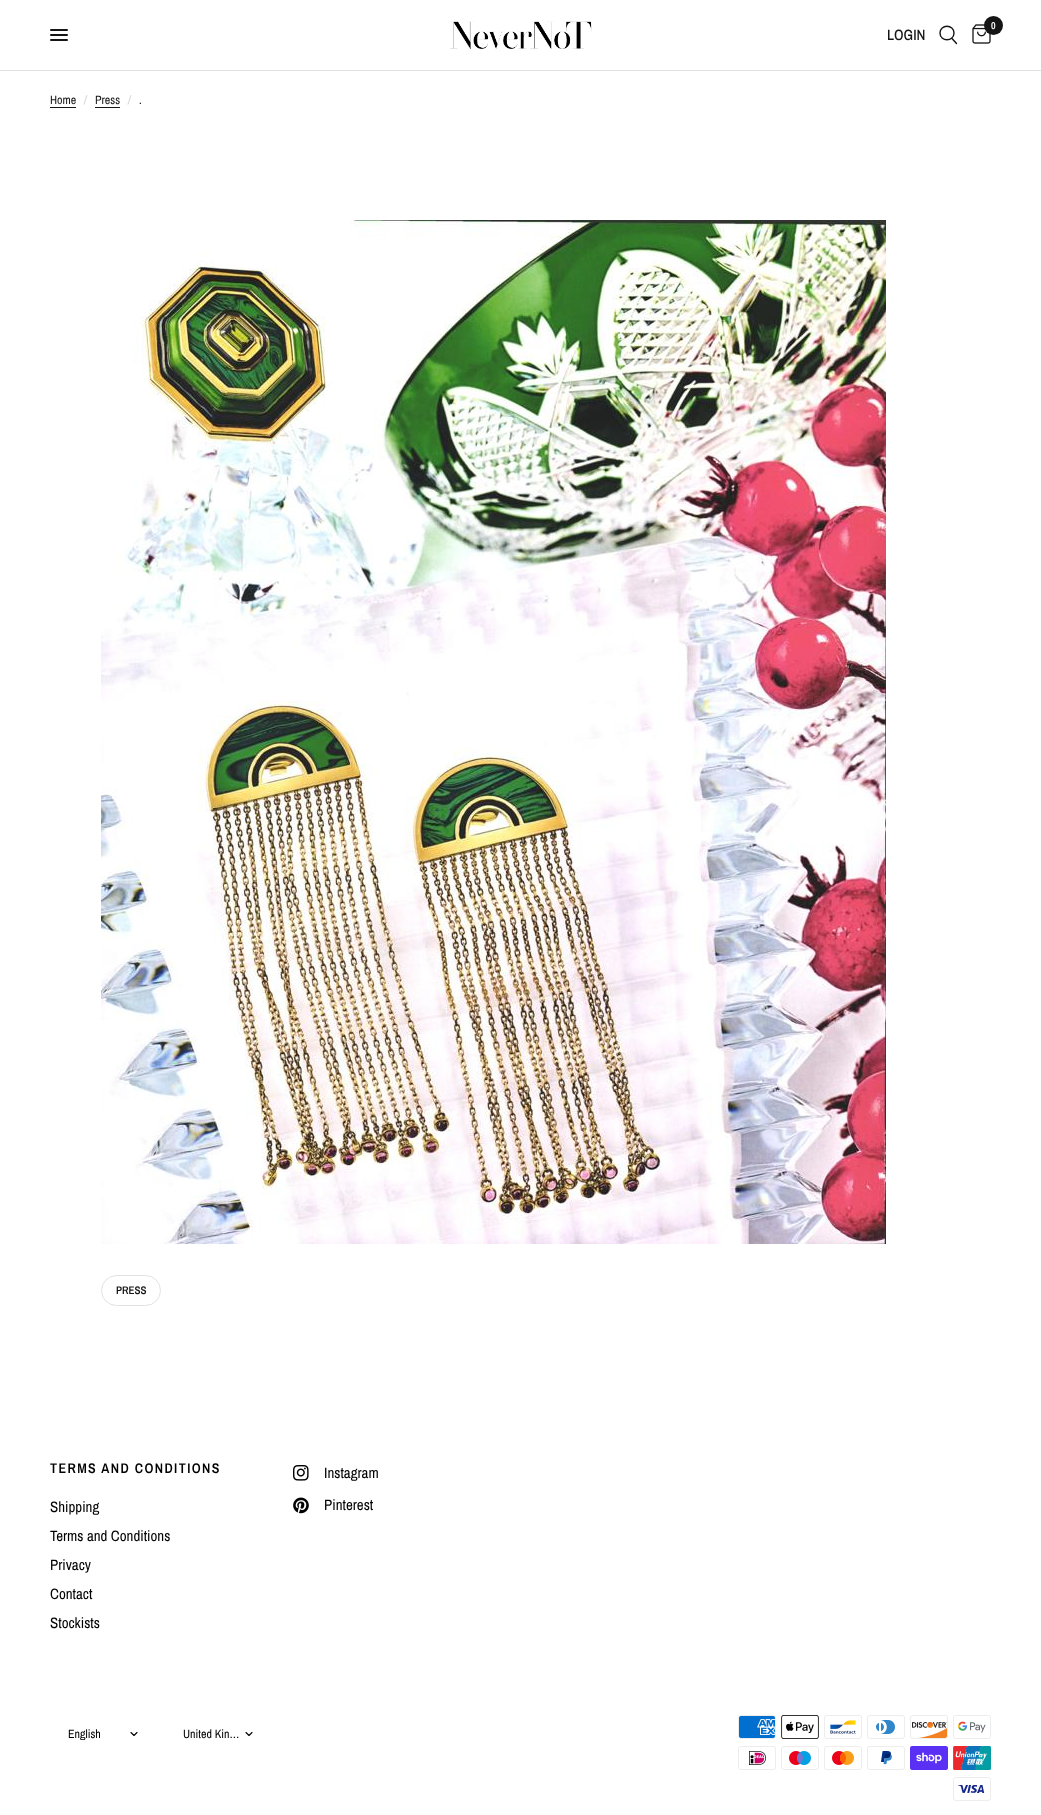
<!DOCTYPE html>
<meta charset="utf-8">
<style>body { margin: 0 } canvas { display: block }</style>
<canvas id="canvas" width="1041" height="1815"></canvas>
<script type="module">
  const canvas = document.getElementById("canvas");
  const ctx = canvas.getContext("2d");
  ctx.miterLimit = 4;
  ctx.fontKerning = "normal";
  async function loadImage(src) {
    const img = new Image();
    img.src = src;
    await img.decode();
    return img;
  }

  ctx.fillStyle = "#ffffff";
  ctx.fillRect(0, 0, 1041, 1815);
  ctx.fillStyle = "#e2e2e2";
  ctx.fillRect(0, 70, 1041, 1);
  ctx.fillStyle = "#151515";
  ctx.beginPath();
  ctx.roundRect(50, 29, 18, 2, 1);
  ctx.fill();
  ctx.beginPath();
  ctx.roundRect(50, 34, 18, 2, 1);
  ctx.fill();
  ctx.beginPath();
  ctx.roundRect(50, 39, 18, 2, 1);
  ctx.fill();
  ctx.drawImage(await loadImage("img1.png"), 450, 21, 142, 29);
  ctx.font = "500 15px Archivo Narrow";
  ctx.fillText("LOGIN", 887, 40);
  ctx.beginPath();
  ctx.moveTo(952, 38.5);
  ctx.lineTo(956.5, 43.5);
  ctx.moveTo(954, 33);
  ctx.bezierCurveTo(954, 42, 940, 42, 940, 33);
  ctx.bezierCurveTo(940, 24, 954, 24, 954, 33);
  ctx.closePath();
  ctx.strokeStyle = "#151515";
  ctx.lineWidth = 1.4;
  ctx.lineCap = "round";
  ctx.lineJoin = "round";
  ctx.stroke();
  ctx.drawImage(await loadImage("img2.png"), 972, 24, 19, 20);
  ctx.beginPath();
  ctx.arc(993.5, 25.5, 9.5, 0, Math.PI * 2);
  ctx.fill();
  ctx.font = "600 10px Archivo Narrow";
  ctx.fillStyle = "#ffffff";
  ctx.fillText("0", 991, 29);
  ctx.font = "12px Archivo Narrow";
  ctx.fillStyle = "#151515";
  ctx.fillText("Home", 50, 104);
  ctx.fillRect(50, 107, 26, 1);
  ctx.font = "italic 12px Archivo Narrow";
  ctx.fillStyle = "#d0d0d0";
  ctx.fillText("/", 84, 104);
  ctx.font = "12px Archivo Narrow";
  ctx.fillStyle = "#151515";
  ctx.fillText("Press", 95, 104);
  ctx.fillRect(95, 107, 25, 1);
  ctx.font = "italic 12px Archivo Narrow";
  ctx.fillStyle = "#d0d0d0";
  ctx.fillText("/", 128, 104);
  ctx.font = "12px Archivo Narrow";
  ctx.fillStyle = "#151515";
  ctx.fillText(".", 139, 104);
  ctx.drawImage(await loadImage("img3.png"), 101, 220, 785, 1024);
  ctx.beginPath();
  ctx.roundRect(101.5, 1275.5, 59, 30, 15);
  ctx.strokeStyle = "#e2e2e2";
  ctx.lineWidth = 1;
  ctx.lineJoin = "miter";
  ctx.stroke();
  ctx.font = "600 11px Archivo Narrow";
  ctx.fillText("PRESS", 116, 1294);
  ctx.letterSpacing = "1.4px";
  ctx.font = "600 14px Archivo Narrow";
  ctx.fillStyle = "#000000";
  ctx.fillText("TERMS AND CONDITIONS", 50, 1473);
  ctx.letterSpacing = "0px";
  ctx.font = "15px Archivo Narrow";
  ctx.fillText("Shipping", 50, 1512);
  ctx.fillText("Terms and Conditions", 50, 1541);
  ctx.fillText("Privacy", 50, 1570);
  ctx.fillText("Contact", 50, 1599);
  ctx.fillText("Stockists", 50, 1628);
  ctx.drawImage(await loadImage("img4.png"), 293, 1465, 16, 16);
  ctx.fillText("Instagram", 324, 1478);
  ctx.drawImage(await loadImage("img5.png"), 293, 1497, 16, 17);
  ctx.fillText("Pinterest", 324, 1510);
  ctx.save();
  ctx.beginPath();
  ctx.rect(68, 1728, 57, 12);
  ctx.clip();
  ctx.font = "12px Archivo Narrow";
  ctx.fillText("English", 68, 1738);
  ctx.restore();
  ctx.beginPath();
  ctx.moveTo(137, 1732.5);
  ctx.lineTo(134, 1735.5);
  ctx.lineTo(131, 1732.5);
  ctx.strokeStyle = "#000000";
  ctx.lineWidth = 1.1;
  ctx.lineJoin = "round";
  ctx.stroke();
  ctx.font = "12px Archivo Narrow";
  ctx.fillText("United Kin…", 183, 1738);
  ctx.beginPath();
  ctx.moveTo(252, 1732.5);
  ctx.lineTo(249, 1735.5);
  ctx.lineTo(246, 1732.5);
  ctx.stroke();
  ctx.drawImage(await loadImage("img6.png"), 738, 1715, 38, 24);
  ctx.drawImage(await loadImage("img7.png"), 781, 1715, 38, 24);
  ctx.drawImage(await loadImage("img8.png"), 824, 1715, 38, 24);
  ctx.drawImage(await loadImage("img9.png"), 867, 1715, 38, 24);
  ctx.drawImage(await loadImage("img10.png"), 910, 1715, 38, 24);
  ctx.drawImage(await loadImage("img11.png"), 953, 1715, 38, 24);
  ctx.drawImage(await loadImage("img12.png"), 738, 1746, 38, 24);
  ctx.drawImage(await loadImage("img13.png"), 781, 1746, 38, 24);
  ctx.drawImage(await loadImage("img14.png"), 824, 1746, 38, 24);
  ctx.drawImage(await loadImage("img15.png"), 867, 1746, 38, 24);
  ctx.drawImage(await loadImage("img16.png"), 910, 1746, 38, 24);
  ctx.drawImage(await loadImage("img17.png"), 953, 1746, 38, 24);
  ctx.drawImage(await loadImage("img18.png"), 953, 1777, 38, 24);
</script>
